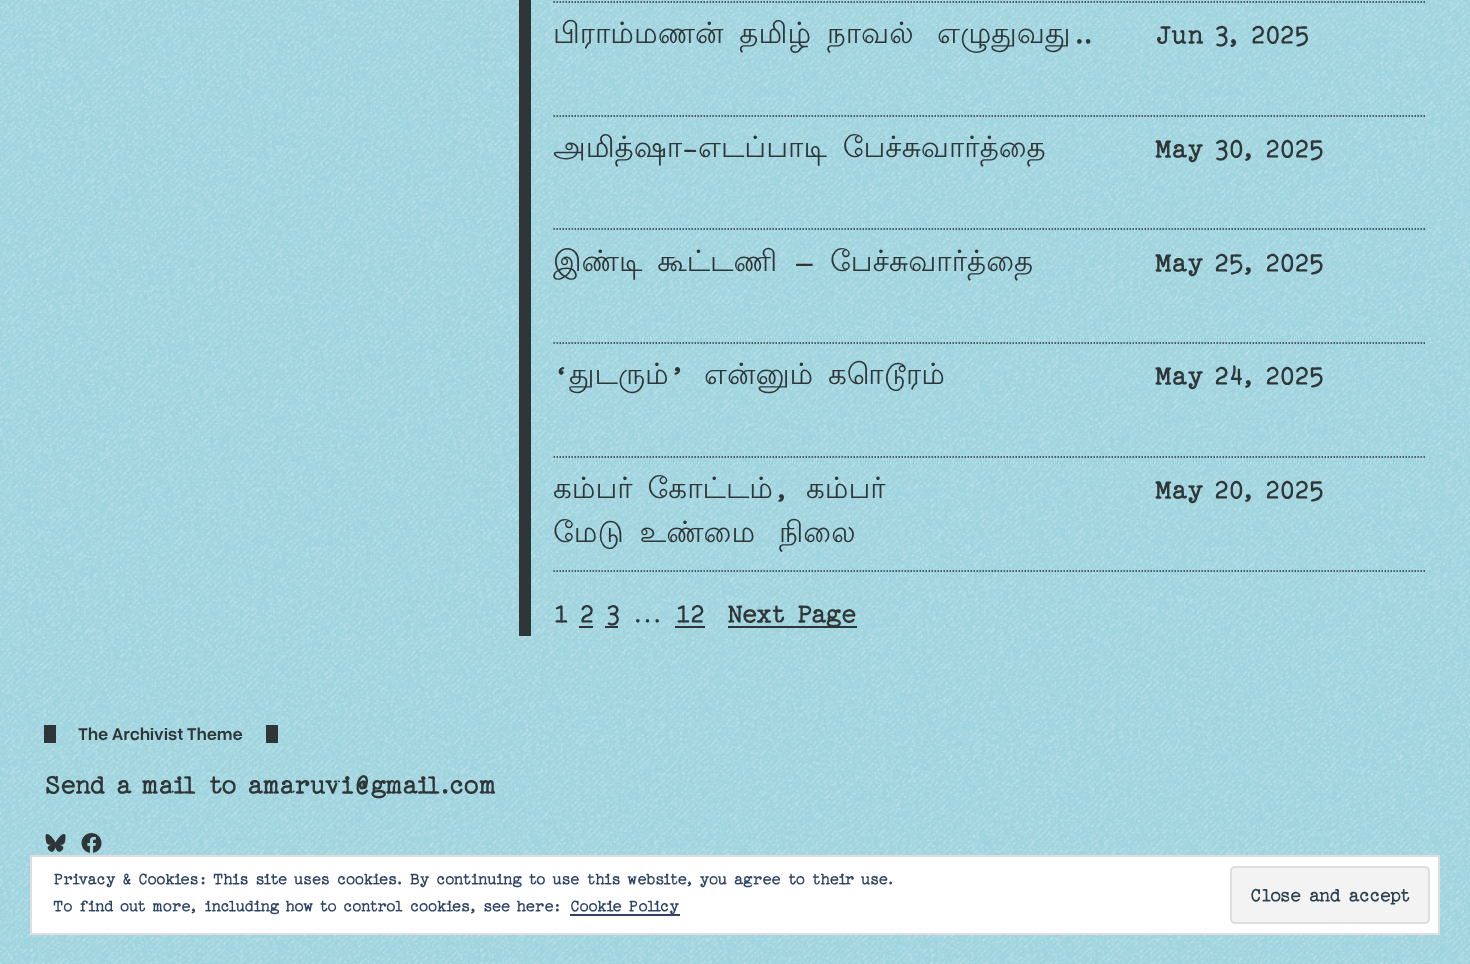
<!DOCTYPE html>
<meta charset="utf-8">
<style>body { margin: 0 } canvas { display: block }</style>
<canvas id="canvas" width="1470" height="964"></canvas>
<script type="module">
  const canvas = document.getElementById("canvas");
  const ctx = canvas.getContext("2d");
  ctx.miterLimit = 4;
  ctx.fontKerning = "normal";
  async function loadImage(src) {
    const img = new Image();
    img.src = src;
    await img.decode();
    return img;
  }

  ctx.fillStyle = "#9fd4df";
  ctx.fillRect(0, 0, 1470, 964);
  ctx.drawImage(await loadImage("img1.png"), 0, 0, 1470, 964);
  ctx.fillStyle = "rgba(25, 25, 26, 0.85)";
  ctx.fillRect(519, 0, 12, 636);
  ctx.beginPath();
  ctx.moveTo(553.5, 2);
  ctx.lineTo(1426.5, 2);
  ctx.strokeStyle = "rgba(25, 25, 26, 0.85)";
  ctx.lineWidth = 1.5;
  ctx.setLineDash([1.5, 1.5]);
  ctx.stroke();
  ctx.beginPath();
  ctx.moveTo(553.5, 116);
  ctx.lineTo(1426.5, 116);
  ctx.stroke();
  ctx.wordSpacing = "7px";
  ctx.font = "29.4px Lohit Tamil";
  ctx.fillStyle = "#2e3638";
  ctx.fillText("பிராம்மணன் தமிழ் நாவல்", 553, 43);
  ctx.wordSpacing = "0px";
  ctx.fillText("எழுதுவது", 937, 43);
  ctx.font = "29.4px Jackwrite";
  ctx.fillText("..", 1071, 43);
  ctx.fillText("Jun 3, 2025", 1155, 43);
  ctx.beginPath();
  ctx.moveTo(553.5, 229);
  ctx.lineTo(1426.5, 229);
  ctx.stroke();
  ctx.font = "29.4px Lohit Tamil";
  ctx.fillText("அமித்ஷா", 553, 157);
  ctx.font = "29.4px Jackwrite";
  ctx.fillText("-", 682, 157);
  ctx.wordSpacing = "7px";
  ctx.font = "29.4px Lohit Tamil";
  ctx.fillText("எடப்பாடி பேச்சுவார்த்தை", 698, 157);
  ctx.wordSpacing = "0px";
  ctx.font = "29.4px Jackwrite";
  ctx.fillText("May 30, 2025", 1155, 157);
  ctx.beginPath();
  ctx.moveTo(553.5, 343);
  ctx.lineTo(1426.5, 343);
  ctx.stroke();
  ctx.wordSpacing = "6px";
  ctx.font = "29.4px Lohit Tamil";
  ctx.fillText("இண்டி கூட்டணி", 553, 271);
  ctx.wordSpacing = "0px";
  ctx.font = "29.4px Jackwrite";
  ctx.fillText("–", 796, 271);
  ctx.font = "29.4px Lohit Tamil";
  ctx.fillText("பேச்சுவார்த்தை", 830, 271);
  ctx.font = "29.4px Jackwrite";
  ctx.fillText("May 25, 2025", 1155, 271);
  ctx.beginPath();
  ctx.moveTo(553.5, 457);
  ctx.lineTo(1426.5, 457);
  ctx.stroke();
  ctx.fillText("‘", 553, 384);
  ctx.font = "29.4px Lohit Tamil";
  ctx.fillText("துடரும்", 569, 384);
  ctx.font = "29.4px Jackwrite";
  ctx.fillText("’", 669, 384);
  ctx.wordSpacing = "6px";
  ctx.font = "29.4px Lohit Tamil";
  ctx.fillText("என்னும் கொடூரம்", 704, 384);
  ctx.wordSpacing = "0px";
  ctx.font = "29.4px Jackwrite";
  ctx.fillText("May 24, 2025", 1155, 384);
  ctx.beginPath();
  ctx.moveTo(553.5, 571);
  ctx.lineTo(1426.5, 571);
  ctx.stroke();
  ctx.wordSpacing = "6px";
  ctx.font = "29.4px Lohit Tamil";
  ctx.fillText("கம்பர் கோட்டம்", 553, 498);
  ctx.wordSpacing = "0px";
  ctx.font = "29.4px Jackwrite";
  ctx.fillText(",", 773, 498);
  ctx.font = "29.4px Lohit Tamil";
  ctx.fillText("கம்பர்", 806, 498);
  ctx.wordSpacing = "7px";
  ctx.fillText("மேடு உண்மை", 553, 542);
  ctx.wordSpacing = "0px";
  ctx.fillText("நிலை", 779, 542);
  ctx.font = "29.4px Jackwrite";
  ctx.fillText("May 20, 2025", 1155, 498);
  ctx.font = "29px Jackwrite";
  ctx.fillText("1", 553, 622);
  ctx.fillText("2", 579, 622);
  ctx.fillStyle = "rgba(25, 25, 26, 0.85)";
  ctx.fillRect(579, 626, 14, 2);
  ctx.fillStyle = "#2e3638";
  ctx.fillText("3", 605, 622);
  ctx.fillStyle = "rgba(25, 25, 26, 0.85)";
  ctx.fillRect(605, 626, 13, 2);
  ctx.font = "29px Liberation Serif";
  ctx.fillStyle = "#2e3638";
  ctx.fillText("…", 633, 622);
  ctx.font = "29px Jackwrite";
  ctx.fillText("12", 675, 622);
  ctx.fillStyle = "rgba(25, 25, 26, 0.85)";
  ctx.fillRect(675, 626, 30, 2);
  ctx.fillRect(728, 626, 129, 2);
  ctx.fillStyle = "#2e3638";
  ctx.fillText("Next Page", 727, 622);
  ctx.fillStyle = "rgba(25, 25, 26, 0.85)";
  ctx.fillRect(266, 725, 12, 18);
  ctx.fillRect(44, 725, 12, 18);
  ctx.font = "600 18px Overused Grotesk";
  ctx.fillStyle = "#2e3638";
  ctx.fillText("The Archivist Theme", 78, 740);
  ctx.font = "29.4px Jackwrite";
  ctx.fillText("Send a mail to amaruvi@gmail.com", 44, 793);
  ctx.drawImage(await loadImage("img2.png"), 45, 834, 21, 18);
  ctx.drawImage(await loadImage("img3.png"), 81, 833, 21, 20);
  ctx.fillStyle = "#ffffff";
  ctx.beginPath();
  ctx.rect(31, 856, 1408, 78);
  ctx.fill();
  ctx.strokeStyle = "#dedede";
  ctx.lineWidth = 2;
  ctx.setLineDash([]);
  ctx.stroke();
  ctx.font = "18px Jackwrite";
  ctx.fillStyle = "#2e4467";
  ctx.fillText("Privacy & Cookies: This site uses cookies. By continuing to use this website, you agree to their use.", 53, 884);
  ctx.fillStyle = "#f3f3f3";
  ctx.beginPath();
  ctx.roundRect(1231, 867, 198, 56, 4);
  ctx.fill();
  ctx.stroke();
  ctx.font = "21px Jackwrite";
  ctx.fillStyle = "#2e4453";
  ctx.fillText("Close and accept", 1250, 901);
  ctx.wordSpacing = "-0.25px";
  ctx.font = "18px Jackwrite";
  ctx.fillStyle = "#2e4467";
  ctx.fillText("To find out more, including how to control cookies, see here:", 53, 911);
  ctx.fillRect(570, 914, 110, 2);
  ctx.wordSpacing = "0px";
  ctx.fillText("Cookie Policy", 570, 911);
</script>
